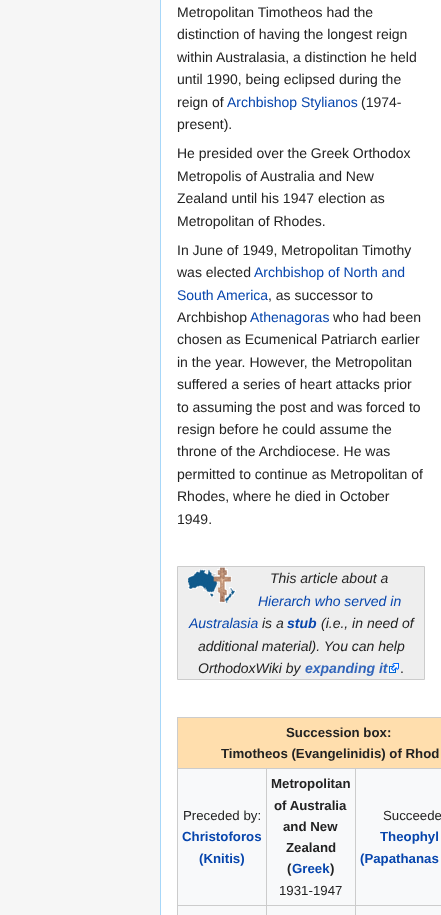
<!DOCTYPE html>
<meta charset="utf-8">
<style>body { margin: 0 } canvas { display: block }</style>
<canvas id="canvas" width="441" height="915"></canvas>
<script type="module">
  const canvas = document.getElementById("canvas");
  const ctx = canvas.getContext("2d");
  ctx.miterLimit = 4;
  ctx.fontKerning = "normal";
  async function loadImage(src) {
    const img = new Image();
    img.src = src;
    await img.decode();
    return img;
  }

  ctx.fillStyle = "#f6f6f6";
  ctx.fillRect(0, 0, 441, 915);
  ctx.fillStyle = "#ffffff";
  ctx.fillRect(161, 0, 280, 915);
  ctx.fillStyle = "#a7d7f9";
  ctx.fillRect(160, 0, 1, 915);
  ctx.font = "14px Liberation Sans";
  ctx.fillStyle = "#222222";
  ctx.fillText("Metropolitan Timotheos had the", 177, 17);
  ctx.fillText("distinction of having the longest reign", 177, 39);
  ctx.fillText("within Australasia, a distinction he held", 177, 62);
  ctx.fillText("until 1990, being eclipsed during the", 177, 84);
  ctx.fillText("reign of", 177, 107);
  ctx.fillStyle = "#0645ad";
  ctx.fillText("Archbishop Stylianos", 227, 107);
  ctx.fillStyle = "#222222";
  ctx.fillText("(1974-", 361, 107);
  ctx.fillText("present).", 177, 129);
  ctx.fillText("He presided over the Greek Orthodox", 177, 158);
  ctx.fillText("Metropolis of Australia and New", 177, 181);
  ctx.fillText("Zealand until his 1947 election as", 177, 203);
  ctx.fillText("Metropolitan of Rhodes.", 177, 226);
  ctx.fillText("In June of 1949, Metropolitan Timothy", 177, 255);
  ctx.fillText("was elected", 177, 277);
  ctx.fillStyle = "#0645ad";
  ctx.fillText("Archbishop of North and", 254, 277);
  ctx.fillText("South America", 177, 300);
  ctx.fillStyle = "#222222";
  ctx.fillText(", as successor to", 268, 300);
  ctx.fillText("Archbishop", 177, 322);
  ctx.fillStyle = "#0645ad";
  ctx.fillText("Athenagoras", 250, 322);
  ctx.fillStyle = "#222222";
  ctx.fillText("who had been", 333, 322);
  ctx.fillText("chosen as Ecumenical Patriarch earlier", 177, 344);
  ctx.fillText("in the year. However, the Metropolitan", 177, 367);
  ctx.fillText("suffered a series of heart attacks prior", 177, 389);
  ctx.fillText("to assuming the post and was forced to", 177, 412);
  ctx.fillText("resign before he could assume the", 177, 434);
  ctx.fillText("throne of the Archdiocese. He was", 177, 456);
  ctx.fillText("permitted to continue as Metropolitan of", 177, 479);
  ctx.fillText("Rhodes, where he died in October", 177, 501);
  ctx.fillText("1949.", 177, 524);
  ctx.fillStyle = "#eeeeee";
  ctx.beginPath();
  ctx.rect(177.5, 566.5, 247, 113);
  ctx.fill();
  ctx.strokeStyle = "#cccccc";
  ctx.stroke();
  ctx.drawImage(await loadImage("img1.png"), 188, 567, 48, 36);
  ctx.font = "italic 14px Liberation Sans";
  ctx.fillStyle = "#222222";
  ctx.fillText("This article about a", 270, 583);
  ctx.fillStyle = "#0645ad";
  ctx.fillText("Hierarch who served in", 258, 606);
  ctx.fillText("Australasia", 189, 628);
  ctx.fillStyle = "#222222";
  ctx.fillText("is a", 262, 628);
  ctx.font = "italic bold 14px Liberation Sans";
  ctx.fillStyle = "#0645ad";
  ctx.fillText("stub", 287, 628);
  ctx.font = "italic 14px Liberation Sans";
  ctx.fillStyle = "#222222";
  ctx.fillText("(i.e., in need of", 321, 628);
  ctx.fillText("additional material). You can help", 198, 651);
  ctx.fillText("OrthodoxWiki by", 198, 673);
  ctx.font = "italic bold 14px Liberation Sans";
  ctx.fillStyle = "#3366bb";
  ctx.fillText("expanding it", 305, 673);
  ctx.drawImage(await loadImage("img2.png"), 389, 663, 10, 10);
  ctx.font = "14px Liberation Sans";
  ctx.fillStyle = "#222222";
  ctx.fillText(".", 400, 673);
  ctx.fillStyle = "#f8f9fa";
  ctx.fillRect(178, 769, 263, 146);
  ctx.fillStyle = "#cccccc";
  ctx.fillRect(177, 717, 264, 1);
  ctx.fillRect(177, 717, 1, 198);
  ctx.fillStyle = "#ffdead";
  ctx.fillRect(178, 718, 263, 50);
  ctx.font = "bold 13.25px Liberation Sans";
  ctx.fillStyle = "#222222";
  ctx.fillText("Succession box:", 286, 737);
  ctx.fillText("Timotheos (Evangelinidis) of Rhod", 221, 758);
  ctx.fillStyle = "#cccccc";
  ctx.fillRect(355, 768, 86, 1);
  ctx.fillRect(355, 905, 86, 1);
  ctx.fillRect(355, 905, 1, 10);
  ctx.fillRect(266, 905, 90, 1);
  ctx.fillRect(355, 768, 1, 138);
  ctx.fillRect(266, 768, 90, 1);
  ctx.fillRect(266, 905, 1, 10);
  ctx.fillRect(177, 905, 90, 1);
  ctx.fillRect(266, 768, 1, 138);
  ctx.fillRect(177, 768, 90, 1);
  ctx.font = "13.25px Liberation Sans";
  ctx.fillStyle = "#222222";
  ctx.fillText("Preceded by:", 183, 820);
  ctx.font = "bold 13.25px Liberation Sans";
  ctx.fillStyle = "#0645ad";
  ctx.fillText("Christoforos", 182, 841);
  ctx.fillText("(Knitis)", 199, 863);
  ctx.fillStyle = "#222222";
  ctx.fillText("Metropolitan", 271, 788);
  ctx.fillText("of Australia", 274, 810);
  ctx.fillText("and New", 283, 831);
  ctx.fillText("Zealand", 286, 852);
  ctx.fillText("(", 287, 873);
  ctx.fillStyle = "#0645ad";
  ctx.fillText("Greek", 292, 873);
  ctx.fillStyle = "#222222";
  ctx.fillText(")", 330, 873);
  ctx.font = "13.25px Liberation Sans";
  ctx.fillText("1931-1947", 279, 895);
  ctx.fillText("Succeede", 383, 820);
  ctx.font = "bold 13.25px Liberation Sans";
  ctx.fillStyle = "#0645ad";
  ctx.fillText("Theophyl", 380, 841);
  ctx.fillText("(Papathanas", 360, 863);
</script>
